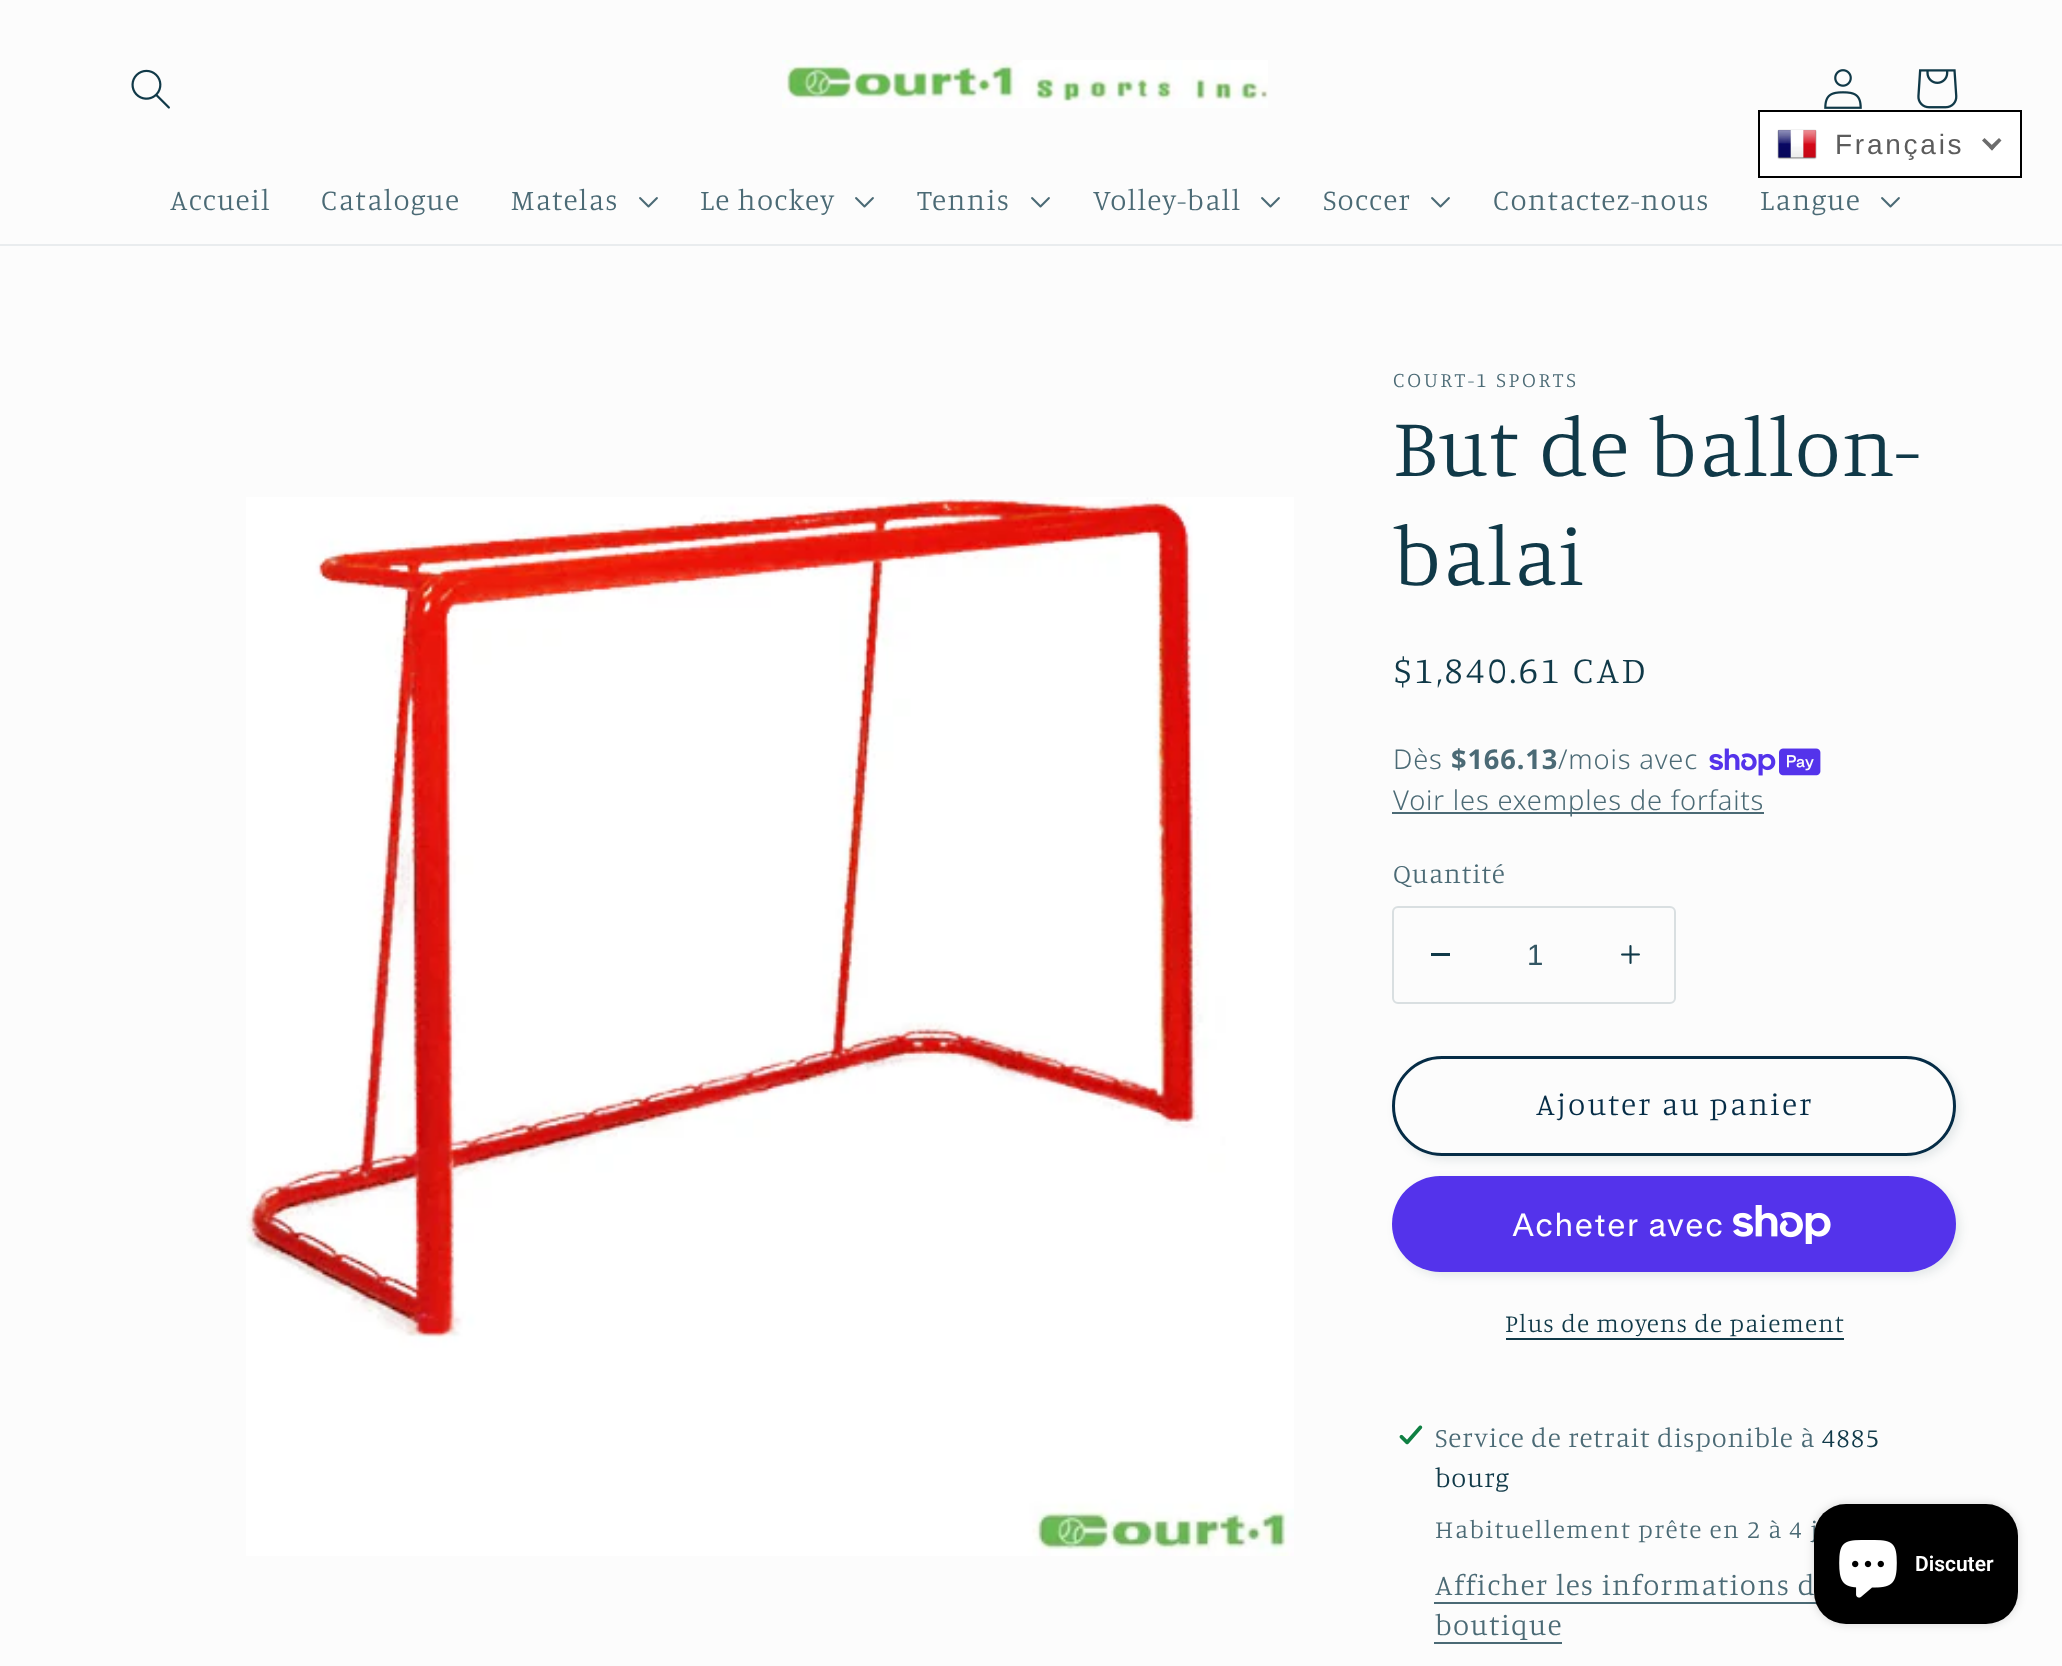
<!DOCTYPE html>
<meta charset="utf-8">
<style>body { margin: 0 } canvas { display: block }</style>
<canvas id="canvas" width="2062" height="1666"></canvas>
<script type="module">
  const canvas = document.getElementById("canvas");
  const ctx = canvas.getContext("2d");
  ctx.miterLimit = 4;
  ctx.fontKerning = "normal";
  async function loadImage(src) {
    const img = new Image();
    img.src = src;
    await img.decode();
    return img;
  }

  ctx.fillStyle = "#fcfcfc";
  ctx.fillRect(0, 0, 2062, 1666);
  ctx.fillStyle = "#ffffff";
  ctx.beginPath();
  ctx.rect(1759, 111, 262, 66);
  ctx.fill();
  ctx.strokeStyle = "#000000";
  ctx.lineWidth = 2;
  ctx.stroke();
  ctx.drawImage(await loadImage("img1.png"), 1777, 129, 40, 31);
  ctx.letterSpacing = "2.75px";
  ctx.font = "28px Liberation Sans";
  ctx.fillStyle = "#5c5c5c";
  ctx.fillText("Français", 1835, 154);
  ctx.fillStyle = "#6c6c6c";
  ctx.beginPath();
  ctx.moveTo(1999, 138);
  ctx.lineTo(2001.5, 140.5);
  ctx.lineTo(1992, 150.5);
  ctx.lineTo(1989, 147.5);
  ctx.closePath();
  ctx.fill();
  ctx.beginPath();
  ctx.moveTo(1984.5, 138);
  ctx.lineTo(1994.5, 147.5);
  ctx.lineTo(1992, 150.5);
  ctx.lineTo(1982, 140.5);
  ctx.closePath();
  ctx.fill();
  ctx.fillStyle = "#e9ecee";
  ctx.fillRect(0, 244, 2062, 2);
  ctx.drawImage(await loadImage("img2.png"), 131, 69, 39, 40);
  ctx.drawImage(await loadImage("img3.png"), 782, 60, 486, 48);
  ctx.drawImage(await loadImage("img4.png"), 1824, 69, 38, 40);
  ctx.drawImage(await loadImage("img5.png"), 1917, 69, 41, 40);
  ctx.letterSpacing = "1.25px";
  ctx.font = "300 29.4px Manuale";
  ctx.fillStyle = "#4b6a75";
  ctx.fillText("Accueil", 170, 210);
  ctx.fillText("Catalogue", 321, 210);
  ctx.fillText("Matelas", 511, 210);
  ctx.drawImage(await loadImage("img6.png"), 639, 197, 19, 11);
  ctx.fillText("Le hockey", 700, 210);
  ctx.drawImage(await loadImage("img6.png"), 855, 197, 19, 11);
  ctx.fillText("Tennis", 917, 210);
  ctx.drawImage(await loadImage("img6.png"), 1031, 197, 19, 11);
  ctx.fillText("Volley-ball", 1093, 210);
  ctx.drawImage(await loadImage("img6.png"), 1261, 197, 19, 11);
  ctx.fillText("Soccer", 1323, 210);
  ctx.drawImage(await loadImage("img6.png"), 1431, 197, 19, 11);
  ctx.fillText("Contactez-nous", 1493, 210);
  ctx.fillText("Langue", 1760, 210);
  ctx.drawImage(await loadImage("img6.png"), 1881, 197, 19, 11);
  ctx.drawImage(await loadImage("img7.png"), 246, 497, 1048, 1059);
  ctx.letterSpacing = "2.75px";
  ctx.font = "300 21px Manuale";
  ctx.fillText("COURT-1 SPORTS", 1393, 387);
  ctx.letterSpacing = "1.25px";
  ctx.font = "300 84px Manuale";
  ctx.fillStyle = "#103948";
  ctx.fillText("But de ballon-", 1393, 476);
  ctx.fillText("balai", 1393, 585);
  ctx.letterSpacing = "2.75px";
  ctx.font = "300 37.75px Manuale";
  ctx.fillText("$1,840.61 CAD", 1393, 683);
  ctx.letterSpacing = "0.85px";
  ctx.font = "300 27.25px Noto Sans";
  ctx.fillStyle = "#4b6a75";
  ctx.fillText("Dès", 1393, 769);
  ctx.font = "bold 27.25px Noto Sans";
  ctx.fillText("$166.13", 1451, 769);
  ctx.font = "300 27.25px Noto Sans";
  ctx.fillText("/mois avec", 1558, 769);
  ctx.drawImage(await loadImage("img8.png"), 1709, 748, 112, 28);
  ctx.fillRect(1392, 812, 372, 2);
  ctx.fillText("Voir les exemples de forfaits", 1393, 810);
  ctx.font = "300 27.25px Manuale";
  ctx.fillText("Quantité", 1393, 883);
  ctx.fillStyle = "#103948";
  ctx.fillRect(1431, 953, 19, 3);
  ctx.drawImage(await loadImage("img9.png"), 1621, 945, 19, 19);
  ctx.beginPath();
  ctx.roundRect(1393, 907, 282, 96, 5);
  ctx.strokeStyle = "#d9dfe1";
  ctx.stroke();
  ctx.letterSpacing = "0px";
  ctx.font = "29.4px Liberation Sans";
  ctx.fillStyle = "#335663";
  ctx.fillText("1", 1527, 965);
  ctx.fillStyle = "rgba(16, 57, 72, 0.1)";
  ctx.filter = "blur(5px)";
  ctx.beginPath();
  ctx.roundRect(1396, 1060, 564, 100, 50);
  ctx.fill();
  ctx.filter = "none";
  ctx.fillStyle = "#fcfcfc";
  ctx.beginPath();
  ctx.roundRect(1392, 1056, 564, 100, 50);
  ctx.fill();
  ctx.beginPath();
  ctx.roundRect(1393, 1057, 562, 98, 49);
  ctx.strokeStyle = "#fcfcfc";
  ctx.stroke();
  ctx.beginPath();
  ctx.roundRect(1393.5, 1057.5, 561, 97, 48.5);
  ctx.strokeStyle = "#052c46";
  ctx.lineWidth = 3;
  ctx.stroke();
  ctx.letterSpacing = "2.1px";
  ctx.font = "300 31.5px Manuale";
  ctx.fillStyle = "#052c46";
  ctx.fillText("Ajouter au panier", 1536, 1115);
  ctx.fillStyle = "rgba(16, 57, 72, 0.1)";
  ctx.filter = "blur(5px)";
  ctx.beginPath();
  ctx.roundRect(1396, 1180, 564, 96, 48);
  ctx.fill();
  ctx.filter = "none";
  ctx.fillStyle = "#5433eb";
  ctx.beginPath();
  ctx.roundRect(1392, 1176, 564, 96, 48);
  ctx.fill();
  ctx.letterSpacing = "1.25px";
  ctx.font = "32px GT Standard";
  ctx.fillStyle = "#ffffff";
  ctx.fillText("Acheter avec", 1512, 1236);
  ctx.drawImage(await loadImage("img10.png"), 1733, 1205, 98, 39);
  ctx.letterSpacing = "1.05px";
  ctx.font = "300 25.25px Manuale";
  ctx.fillStyle = "#103948";
  ctx.fillText("Plus de moyens de paiement", 1505, 1332);
  ctx.fillRect(1506, 1338, 338, 2);
  ctx.drawImage(await loadImage("img11.png"), 1399, 1425, 24, 20);
  ctx.letterSpacing = "0.85px";
  ctx.font = "300 27.25px Manuale";
  ctx.fillStyle = "#4b6a75";
  ctx.fillText("Service de retrait disponible à", 1435, 1447);
  ctx.fillStyle = "#103948";
  ctx.fillText("4885", 1822, 1447);
  ctx.fillText("bourg", 1435, 1487);
  ctx.letterSpacing = "1.5px";
  ctx.font = "300 25.25px Manuale";
  ctx.fillStyle = "#4b6a75";
  ctx.fillText("Habituellement prête en 2 à 4 j", 1435, 1538);
  ctx.letterSpacing = "1.25px";
  ctx.font = "300 29.4px Manuale";
  ctx.fillText("Afficher les informations d", 1435, 1595);
  ctx.fillRect(1434, 1602, 383, 2);
  ctx.fillText("boutique", 1435, 1635);
  ctx.fillRect(1434, 1642, 128, 2);
  ctx.fillStyle = "rgba(0, 0, 0, 0.15)";
  ctx.filter = "blur(5px)";
  ctx.beginPath();
  ctx.roundRect(1814, 1504, 204, 120, 32);
  ctx.fill();
  ctx.filter = "none";
  ctx.fillStyle = "#000000";
  ctx.beginPath();
  ctx.roundRect(1814, 1504, 204, 120, 32);
  ctx.fill();
  ctx.drawImage(await loadImage("img12.png"), 1839, 1540, 58, 58);
  ctx.letterSpacing = "0px";
  ctx.font = "600 21px Roboto";
  ctx.fillStyle = "#ffffff";
  ctx.fillText("Discuter", 1915, 1571);
</script>
